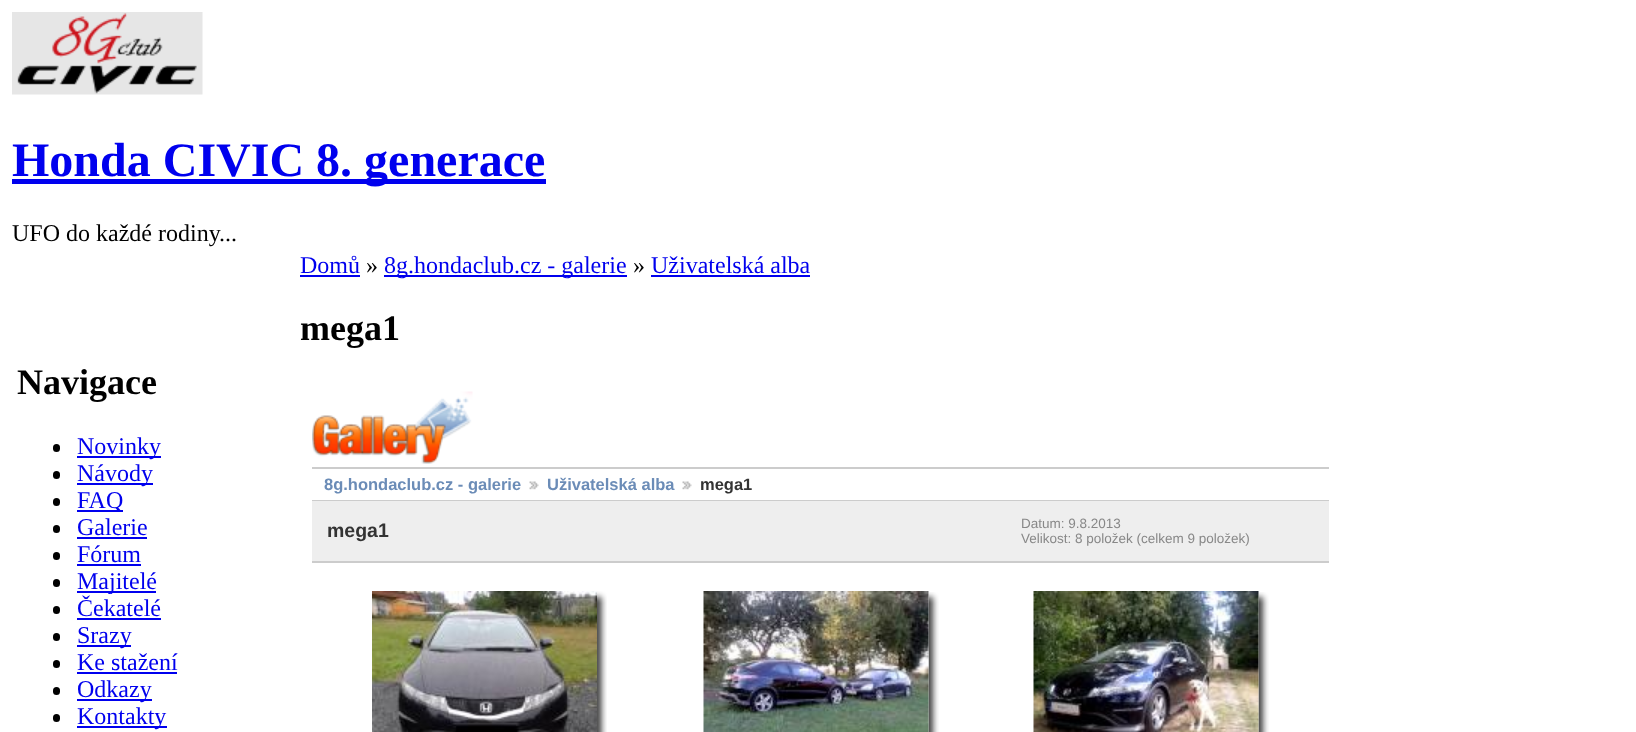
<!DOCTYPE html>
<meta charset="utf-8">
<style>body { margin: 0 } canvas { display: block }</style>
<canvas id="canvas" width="1636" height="732"></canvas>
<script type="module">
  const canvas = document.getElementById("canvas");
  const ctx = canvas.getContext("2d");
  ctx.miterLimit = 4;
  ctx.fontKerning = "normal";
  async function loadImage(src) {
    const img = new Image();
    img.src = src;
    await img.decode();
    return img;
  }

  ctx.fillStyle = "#ffffff";
  ctx.fillRect(0, 0, 1636, 732);
  ctx.drawImage(await loadImage("img1.png"), 12, 12, 191, 83);
  ctx.fillStyle = "#0000ee";
  ctx.fillRect(12, 179, 534, 5);
  ctx.font = "bold 48px Liberation Serif";
  ctx.fillText("Honda CIVIC 8. generace", 12, 176);
  ctx.font = "24px Liberation Serif";
  ctx.fillStyle = "#000000";
  ctx.fillText("UFO do každé rodiny...", 12, 241);
  ctx.font = "bold 36px Liberation Serif";
  ctx.fillText("Navigace", 17, 394);
  ctx.beginPath();
  ctx.roundRect(53, 444, 7, 8, 3.5);
  ctx.fill();
  ctx.fillStyle = "#0000ee";
  ctx.fillRect(77, 456, 84, 2);
  ctx.font = "24px Liberation Serif";
  ctx.fillText("Novinky", 77, 454);
  ctx.fillStyle = "#000000";
  ctx.beginPath();
  ctx.roundRect(53, 471, 7, 8, 3.5);
  ctx.fill();
  ctx.fillStyle = "#0000ee";
  ctx.fillRect(77, 483, 76, 2);
  ctx.fillText("Návody", 77, 481);
  ctx.fillStyle = "#000000";
  ctx.beginPath();
  ctx.roundRect(53, 498, 7, 8, 3.5);
  ctx.fill();
  ctx.fillStyle = "#0000ee";
  ctx.fillRect(77, 510, 46, 2);
  ctx.fillText("FAQ", 77, 508);
  ctx.fillStyle = "#000000";
  ctx.beginPath();
  ctx.roundRect(53, 525, 7, 8, 3.5);
  ctx.fill();
  ctx.fillStyle = "#0000ee";
  ctx.fillText("Galerie", 77, 535);
  ctx.fillRect(77, 537, 70, 2);
  ctx.fillStyle = "#000000";
  ctx.beginPath();
  ctx.roundRect(53, 552, 7, 8, 3.5);
  ctx.fill();
  ctx.fillStyle = "#0000ee";
  ctx.fillText("Fórum", 77, 562);
  ctx.fillRect(77, 564, 64, 2);
  ctx.fillStyle = "#000000";
  ctx.beginPath();
  ctx.roundRect(53, 579, 7, 8, 3.5);
  ctx.fill();
  ctx.fillStyle = "#0000ee";
  ctx.fillRect(77, 591, 79, 2);
  ctx.fillText("Majitelé", 77, 589);
  ctx.fillStyle = "#000000";
  ctx.beginPath();
  ctx.roundRect(53, 606, 7, 8, 3.5);
  ctx.fill();
  ctx.fillStyle = "#0000ee";
  ctx.fillText("Čekatelé", 77, 616);
  ctx.fillRect(77, 618, 84, 2);
  ctx.fillStyle = "#000000";
  ctx.beginPath();
  ctx.roundRect(53, 633, 7, 8, 3.5);
  ctx.fill();
  ctx.fillStyle = "#0000ee";
  ctx.fillRect(77, 645, 54, 2);
  ctx.fillText("Srazy", 77, 643);
  ctx.fillStyle = "#000000";
  ctx.beginPath();
  ctx.roundRect(53, 660, 7, 8, 3.5);
  ctx.fill();
  ctx.fillStyle = "#0000ee";
  ctx.fillText("Ke stažení", 77, 670);
  ctx.fillRect(77, 672, 100, 2);
  ctx.fillStyle = "#000000";
  ctx.beginPath();
  ctx.roundRect(53, 687, 7, 8, 3.5);
  ctx.fill();
  ctx.fillStyle = "#0000ee";
  ctx.fillRect(77, 699, 75, 2);
  ctx.fillText("Odkazy", 77, 697);
  ctx.fillStyle = "#000000";
  ctx.beginPath();
  ctx.roundRect(53, 714, 7, 8, 3.5);
  ctx.fill();
  ctx.fillStyle = "#0000ee";
  ctx.fillRect(77, 726, 90, 2);
  ctx.fillText("Kontakty", 77, 724);
  ctx.fillText("Domů", 300, 273);
  ctx.fillRect(300, 275, 60, 2);
  ctx.fillStyle = "#000000";
  ctx.fillText("»", 366, 273);
  ctx.fillStyle = "#0000ee";
  ctx.fillRect(384, 275, 243, 2);
  ctx.fillText("8g.hondaclub.cz - galerie", 384, 273);
  ctx.fillStyle = "#000000";
  ctx.fillText("»", 633, 273);
  ctx.fillStyle = "#0000ee";
  ctx.fillText("Uživatelská alba", 651, 273);
  ctx.fillRect(651, 275, 159, 2);
  ctx.font = "bold 36px Liberation Serif";
  ctx.fillStyle = "#000000";
  ctx.fillText("mega1", 300, 340);
  ctx.drawImage(await loadImage("img2.png"), 312, 391, 161, 73);
  ctx.fillStyle = "#cccccc";
  ctx.fillRect(312, 467, 1017, 2);
  ctx.fillRect(312, 500, 1017, 1);
  ctx.font = "bold 16.5px Liberation Sans";
  ctx.fillStyle = "#6b8cb7";
  ctx.fillText("8g.hondaclub.cz - galerie", 324, 490);
  ctx.drawImage(await loadImage("img3.png"), 529, 481, 10, 9);
  ctx.fillText("Uživatelská alba", 547, 490);
  ctx.drawImage(await loadImage("img3.png"), 682, 481, 10, 9);
  ctx.fillStyle = "#333333";
  ctx.fillText("mega1", 700, 490);
  ctx.fillStyle = "#eeeeee";
  ctx.fillRect(312, 501, 1017, 60);
  ctx.fillStyle = "#cccccc";
  ctx.fillRect(312, 561, 1017, 2);
  ctx.font = "bold 19.5px Liberation Sans";
  ctx.fillStyle = "#333333";
  ctx.fillText("mega1", 327, 537);
  ctx.font = "13.5px Liberation Sans";
  ctx.fillStyle = "#888888";
  ctx.fillText("Datum: 9.8.2013", 1021, 528);
  ctx.fillText("Velikost: 8 položek (celkem 9 položek)", 1021, 543);
  ctx.drawImage(await loadImage("img4.png"), 372, 591, 225, 141);
  ctx.drawImage(await loadImage("img5.png"), 597, 591, 10, 15);
  ctx.drawImage(await loadImage("img6.png"), 597, 606, 10, 126);
  ctx.drawImage(await loadImage("img8.png"), 928, 592, 11, 14);
  ctx.drawImage(await loadImage("img9.png"), 928, 606, 11, 126);
  ctx.drawImage(await loadImage("img7.png"), 703, 591, 226, 141);
  ctx.drawImage(await loadImage("img8.png"), 1258, 592, 11, 14);
  ctx.drawImage(await loadImage("img9.png"), 1258, 606, 11, 126);
  ctx.drawImage(await loadImage("img10.png"), 1033, 591, 226, 141);
</script>
